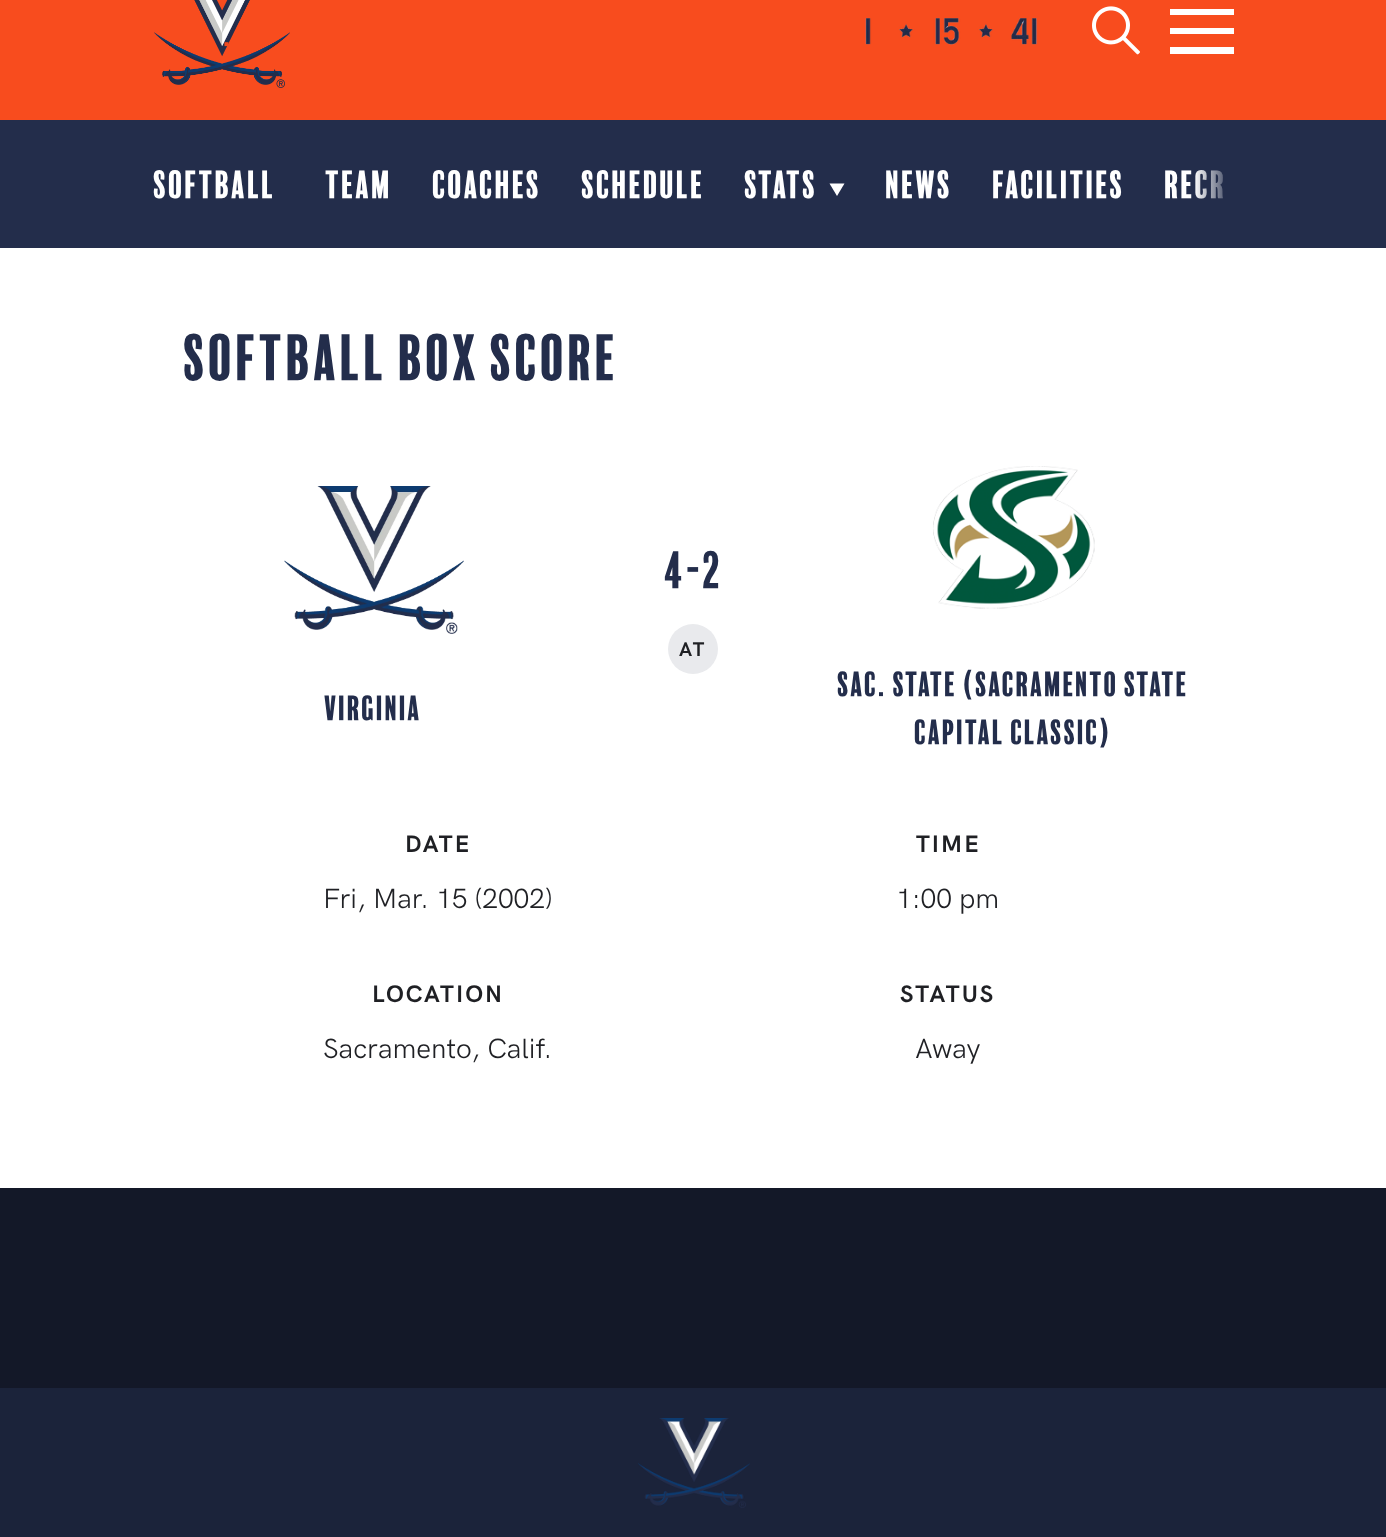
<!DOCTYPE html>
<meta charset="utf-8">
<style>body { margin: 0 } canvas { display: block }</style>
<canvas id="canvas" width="1386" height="1537"></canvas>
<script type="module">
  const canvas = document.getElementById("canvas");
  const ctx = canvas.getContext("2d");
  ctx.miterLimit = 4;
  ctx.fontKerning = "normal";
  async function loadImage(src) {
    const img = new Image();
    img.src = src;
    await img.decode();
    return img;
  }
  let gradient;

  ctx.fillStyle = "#ffffff";
  ctx.fillRect(0, 0, 1386, 1537);
  ctx.fillStyle = "#f84c1e";
  ctx.fillRect(0, 0, 1386, 120);
  ctx.drawImage(await loadImage("img1.png"), 154, 0, 136, 88);
  ctx.drawImage(await loadImage("img2.png"), 865, 18, 172, 27);
  ctx.drawImage(await loadImage("img3.png"), 1092, 6, 48, 49);
  ctx.fillStyle = "#ffffff";
  ctx.beginPath();
  ctx.moveTo(1170, 9);
  ctx.lineTo(1234, 9);
  ctx.lineTo(1234, 15);
  ctx.lineTo(1170, 15);
  ctx.closePath();
  ctx.moveTo(1170, 28);
  ctx.lineTo(1234, 28);
  ctx.lineTo(1234, 34);
  ctx.lineTo(1170, 34);
  ctx.closePath();
  ctx.moveTo(1170, 47);
  ctx.lineTo(1234, 47);
  ctx.lineTo(1234, 54);
  ctx.lineTo(1170, 54);
  ctx.closePath();
  ctx.fill();
  ctx.font = "32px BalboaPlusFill";
  ctx.fillStyle = "#ef4b20";
  ctx.fillText(".", 223, 46);
  ctx.fillStyle = "#232d4b";
  ctx.fillRect(0, 120, 1386, 128);
  ctx.font = "36px BalboaPlusFill";
  ctx.fillStyle = "#ffffff";
  ctx.fillText("Softball", 153, 198);
  ctx.fillText("Team", 325, 198);
  ctx.fillText("Coaches", 432, 198);
  ctx.fillText("Schedule", 581, 198);
  ctx.fillText("Stats", 744, 198);
  ctx.beginPath();
  ctx.moveTo(844.5, 183.5);
  ctx.lineTo(837, 196);
  ctx.lineTo(829.5, 183.5);
  ctx.closePath();
  ctx.fill();
  ctx.fillText("News", 885, 198);
  ctx.fillText("Facilities", 992, 198);
  ctx.fillText("Recr", 1164, 198);
  gradient = ctx.createLinearGradient(1194, 184, 1234, 184);
  gradient.addColorStop(0, "rgba(35, 45, 75, 0)");
  gradient.addColorStop(1, "#232d4b");
  ctx.fillStyle = gradient;
  ctx.fillRect(1196, 170, 28, 29);
  ctx.font = "60px BalboaPlusFill";
  ctx.fillStyle = "#232d4b";
  ctx.fillText("Softball Box Score", 183, 380);
  ctx.font = "48px BalboaPlusFill";
  ctx.fillText("4-2", 664, 588);
  ctx.fillStyle = "#e9eaed";
  ctx.beginPath();
  ctx.arc(693, 649, 25, 0, Math.PI * 2);
  ctx.fill();
  ctx.letterSpacing = "2px";
  ctx.font = "bold 20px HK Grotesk";
  ctx.fillStyle = "#1f2024";
  ctx.fillText("AT", 679, 656);
  ctx.drawImage(await loadImage("img4.png"), 284, 486, 180, 148);
  ctx.letterSpacing = "0px";
  ctx.font = "32px BalboaPlusFill";
  ctx.fillStyle = "#232d4b";
  ctx.fillText("Virginia", 324, 720);
  ctx.drawImage(await loadImage("img5.png"), 933, 466, 162, 143);
  ctx.fillText("Sac. State (Sacramento State", 837, 696);
  ctx.fillText("Capital Classic)", 914, 744);
  ctx.letterSpacing = "2px";
  ctx.font = "bold 24px HK Grotesk";
  ctx.fillStyle = "#1f2024";
  ctx.fillText("DATE", 405, 852);
  ctx.letterSpacing = "0px";
  ctx.font = "28px HK Grotesk";
  ctx.fillText("Fri, Mar. 15 (2002)", 323, 908);
  ctx.letterSpacing = "2px";
  ctx.font = "bold 24px HK Grotesk";
  ctx.fillText("TIME", 916, 852);
  ctx.letterSpacing = "0px";
  ctx.font = "28px HK Grotesk";
  ctx.fillText("1:00 pm", 896, 908);
  ctx.letterSpacing = "2px";
  ctx.font = "bold 24px HK Grotesk";
  ctx.fillText("LOCATION", 372, 1002);
  ctx.letterSpacing = "0px";
  ctx.font = "28px HK Grotesk";
  ctx.fillText("Sacramento, Calif.", 323, 1058);
  ctx.letterSpacing = "2px";
  ctx.font = "bold 24px HK Grotesk";
  ctx.fillText("STATUS", 900, 1002);
  ctx.letterSpacing = "0px";
  ctx.font = "28px HK Grotesk";
  ctx.fillText("Away", 915, 1058);
  ctx.fillStyle = "#131828";
  ctx.fillRect(0, 1188, 1386, 200);
  ctx.fillStyle = "#1b233a";
  ctx.fillRect(0, 1388, 1386, 149);
  ctx.drawImage(await loadImage("img6.png"), 638, 1418, 112, 90);
</script>
